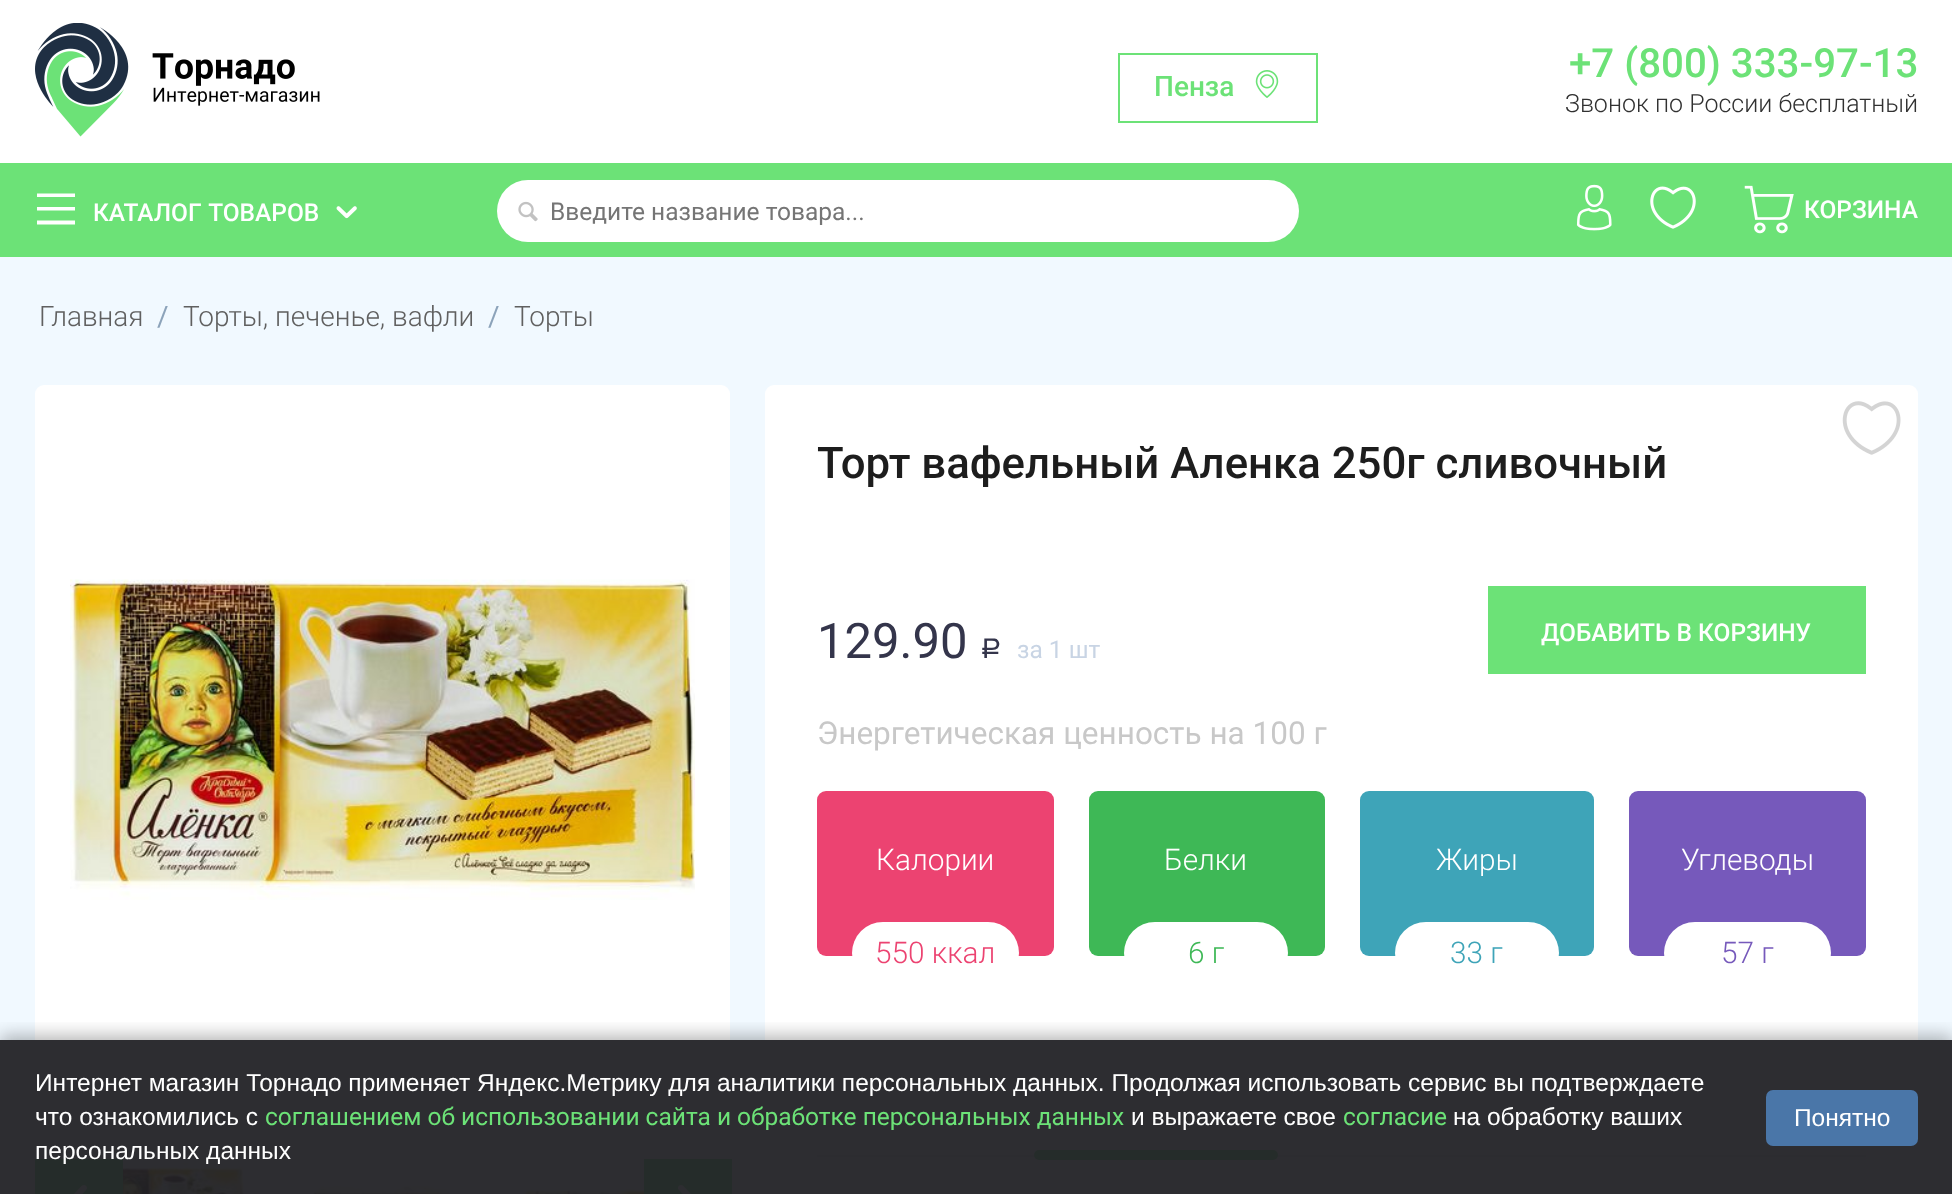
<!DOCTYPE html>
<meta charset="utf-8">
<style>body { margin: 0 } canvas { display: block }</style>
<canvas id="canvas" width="1952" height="1194"></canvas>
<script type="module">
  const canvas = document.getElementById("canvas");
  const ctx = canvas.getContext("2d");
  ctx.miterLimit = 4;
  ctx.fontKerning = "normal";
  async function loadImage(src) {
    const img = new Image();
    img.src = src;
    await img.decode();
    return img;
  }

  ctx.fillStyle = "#ffffff";
  ctx.fillRect(0, 0, 1952, 1194);
  ctx.drawImage(await loadImage("img1.png"), 35, 23, 285, 114);
  ctx.strokeStyle = "#6ce277";
  ctx.lineWidth = 2;
  ctx.strokeRect(1119, 54, 198, 68);
  ctx.font = "500 28px Roboto";
  ctx.fillStyle = "#6ce277";
  ctx.fillText("Пенза", 1154, 96);
  ctx.drawImage(await loadImage("img2.png"), 1255, 70, 24, 28);
  ctx.font = "500 40.25px Roboto";
  ctx.fillText("+7 (800) 333-97-13", 1569, 77);
  ctx.font = "300 25px Roboto";
  ctx.fillStyle = "#313131";
  ctx.fillText("Звонок по России бесплатный", 1565, 112);
  ctx.fillStyle = "#6ce277";
  ctx.fillRect(0, 163, 1952, 94);
  ctx.fillStyle = "#ffffff";
  ctx.beginPath();
  ctx.moveTo(37, 193.5);
  ctx.lineTo(75, 193.5);
  ctx.lineTo(75, 197);
  ctx.lineTo(37, 197);
  ctx.closePath();
  ctx.moveTo(37, 207);
  ctx.lineTo(75, 207);
  ctx.lineTo(75, 210.5);
  ctx.lineTo(37, 210.5);
  ctx.closePath();
  ctx.moveTo(37, 220.5);
  ctx.lineTo(75, 220.5);
  ctx.lineTo(75, 224.5);
  ctx.lineTo(37, 224.5);
  ctx.closePath();
  ctx.fill();
  ctx.wordSpacing = "1px";
  ctx.font = "500 24.5px Roboto";
  ctx.fillText("КАТАЛОГ ТОВАРОВ", 93, 221);
  ctx.drawImage(await loadImage("img3.png"), 336, 206, 21, 13);
  ctx.beginPath();
  ctx.roundRect(497, 180, 802, 62, 31);
  ctx.fill();
  ctx.drawImage(await loadImage("img4.png"), 518, 201, 20, 21);
  ctx.wordSpacing = "0px";
  ctx.font = "24.5px Roboto";
  ctx.fillStyle = "#757575";
  ctx.fillText("Введите название товара...", 550, 220);
  ctx.drawImage(await loadImage("img5.png"), 1576, 184, 36, 47);
  ctx.drawImage(await loadImage("img6.png"), 1650, 186, 46, 43);
  ctx.drawImage(await loadImage("img7.png"), 1744, 185, 50, 49);
  ctx.font = "500 24.5px Roboto";
  ctx.fillStyle = "#ffffff";
  ctx.fillText("КОРЗИНА", 1804, 218);
  ctx.fillStyle = "#f1f9ff";
  ctx.fillRect(0, 257, 1952, 937);
  ctx.font = "300 28px Roboto";
  ctx.fillStyle = "#606060";
  ctx.fillText("Главная", 39, 326);
  ctx.font = "28px Roboto";
  ctx.fillStyle = "#8ca3ba";
  ctx.fillText("/", 157, 326);
  ctx.font = "300 28px Roboto";
  ctx.fillStyle = "#606060";
  ctx.fillText("Торты, печенье, вафли", 183, 326);
  ctx.font = "28px Roboto";
  ctx.fillStyle = "#8ca3ba";
  ctx.fillText("/", 488, 326);
  ctx.font = "300 28px Roboto";
  ctx.fillStyle = "#606060";
  ctx.fillText("Торты", 514, 326);
  ctx.fillStyle = "#ffffff";
  ctx.beginPath();
  ctx.roundRect(35, 385, 695, 695, 9);
  ctx.fill();
  ctx.drawImage(await loadImage("img8.png"), 70, 579, 625, 321);
  ctx.beginPath();
  ctx.roundRect(86, 1115, 175, 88, 9);
  ctx.fill();
  ctx.drawImage(await loadImage("img9.png"), 102, 1154, 142, 40);
  ctx.beginPath();
  ctx.roundRect(296, 1115, 175, 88, 9);
  ctx.fill();
  ctx.drawImage(await loadImage("img10.png"), 312, 1177, 142, 17);
  ctx.beginPath();
  ctx.roundRect(506, 1115, 175, 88, 9);
  ctx.fill();
  ctx.drawImage(await loadImage("img11.png"), 522, 1176, 122, 18);
  ctx.fillStyle = "#6ce277";
  ctx.fillRect(35, 1159, 88, 35);
  ctx.drawImage(await loadImage("img12.png"), 74, 1185, 13, 9);
  ctx.fillRect(644, 1159, 88, 35);
  ctx.drawImage(await loadImage("img13.png"), 678, 1185, 13, 9);
  ctx.fillStyle = "#ffffff";
  ctx.beginPath();
  ctx.roundRect(765, 385, 1153, 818, 9);
  ctx.fill();
  ctx.font = "500 43.75px Roboto";
  ctx.fillStyle = "#1d1d1d";
  ctx.fillText("Торт вафельный Аленка 250г сливочный", 817, 478);
  ctx.font = "49px Roboto";
  ctx.fillStyle = "#34354b";
  ctx.fillText("129.90", 817, 658);
  ctx.font = "28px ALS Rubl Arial";
  ctx.fillText("Р", 980, 658);
  ctx.font = "24.5px Roboto";
  ctx.fillStyle = "#c8d4e4";
  ctx.fillText("за 1 шт", 1017, 658);
  ctx.drawImage(await loadImage("img14.png"), 1842, 401, 59, 54);
  ctx.fillStyle = "#6ce277";
  ctx.fillRect(1488, 586, 378, 88);
  ctx.font = "500 24.5px Roboto";
  ctx.fillStyle = "#ffffff";
  ctx.fillText("ДОБАВИТЬ В КОРЗИНУ", 1541, 641);
  ctx.font = "31.5px Roboto";
  ctx.fillStyle = "#c8c8c8";
  ctx.fillText("Энергетическая ценность на 100 г", 817, 744);
  ctx.fillStyle = "#ec4371";
  ctx.beginPath();
  ctx.roundRect(817, 791, 237, 165, 9);
  ctx.fill();
  ctx.font = "300 29.75px Roboto";
  ctx.fillStyle = "#ffffff";
  ctx.fillText("Калории", 876, 870);
  ctx.beginPath();
  ctx.roundRect(852, 922, 167, 62, 31);
  ctx.fill();
  ctx.fillStyle = "#ec4371";
  ctx.fillText("550 ккал", 875, 963);
  ctx.fillStyle = "#3eb856";
  ctx.beginPath();
  ctx.roundRect(1089, 791, 236, 165, 9);
  ctx.fill();
  ctx.fillStyle = "#ffffff";
  ctx.fillText("Белки", 1164, 870);
  ctx.beginPath();
  ctx.roundRect(1124, 922, 164, 62, 31);
  ctx.fill();
  ctx.fillStyle = "#3eb856";
  ctx.fillText("6 г", 1188, 963);
  ctx.fillStyle = "#3ea4b8";
  ctx.beginPath();
  ctx.roundRect(1360, 791, 234, 165, 9);
  ctx.fill();
  ctx.fillStyle = "#ffffff";
  ctx.fillText("Жиры", 1436, 870);
  ctx.beginPath();
  ctx.roundRect(1395, 922, 164, 62, 31);
  ctx.fill();
  ctx.fillStyle = "#3ea4b8";
  ctx.fillText("33 г", 1450, 963);
  ctx.fillStyle = "#7659bb";
  ctx.beginPath();
  ctx.roundRect(1629, 791, 237, 165, 9);
  ctx.fill();
  ctx.fillStyle = "#ffffff";
  ctx.fillText("Углеводы", 1681, 870);
  ctx.beginPath();
  ctx.roundRect(1664, 922, 167, 62, 31);
  ctx.fill();
  ctx.fillStyle = "#7659bb";
  ctx.fillText("57 г", 1721, 963);
  ctx.fillStyle = "#e2e2e2";
  ctx.fillRect(817, 1155, 1049, 2);
  ctx.fillStyle = "#6ce277";
  ctx.beginPath();
  ctx.roundRect(1034, 1150, 244, 10, 5);
  ctx.fill();
  ctx.save();
  ctx.beginPath();
  ctx.rect(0, 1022, 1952, 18);
  ctx.clip();
  ctx.fillStyle = "rgba(0, 0, 0, 0.3)";
  ctx.filter = "blur(9px)";
  ctx.beginPath();
  ctx.rect(0, 1036, 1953, 156);
  ctx.fill();
  ctx.filter = "none";
  ctx.restore();
  ctx.fillStyle = "rgba(34, 34, 38, 0.95)";
  ctx.fillRect(0, 1040, 1952, 154);
  ctx.font = "24.5px Liberation Sans";
  ctx.fillStyle = "#ffffff";
  ctx.fillText("Интернет магазин Торнадо применяет Яндекс.Метрику для аналитики персональных данных. Продолжая использовать сервис вы подтверждаете", 35, 1091);
  ctx.fillText("что ознакомились с", 35, 1125);
  ctx.font = "24.5px Roboto";
  ctx.fillStyle = "#6ce277";
  ctx.fillText("соглашением об использовании сайта и обработке персональных данных", 265, 1125);
  ctx.font = "24.5px Liberation Sans";
  ctx.fillStyle = "#ffffff";
  ctx.fillText("и выражаете свое", 1131, 1125);
  ctx.font = "24.5px Roboto";
  ctx.fillStyle = "#6ce277";
  ctx.fillText("согласие", 1343, 1125);
  ctx.font = "24.5px Liberation Sans";
  ctx.fillStyle = "#ffffff";
  ctx.fillText("на обработку ваших", 1453, 1125);
  ctx.fillText("персональных данных", 35, 1159);
  ctx.fillStyle = "#4a76a8";
  ctx.beginPath();
  ctx.roundRect(1766, 1090, 152, 56, 7);
  ctx.fill();
  ctx.fillStyle = "#ffffff";
  ctx.fillText("Понятно", 1794, 1126);
</script>
